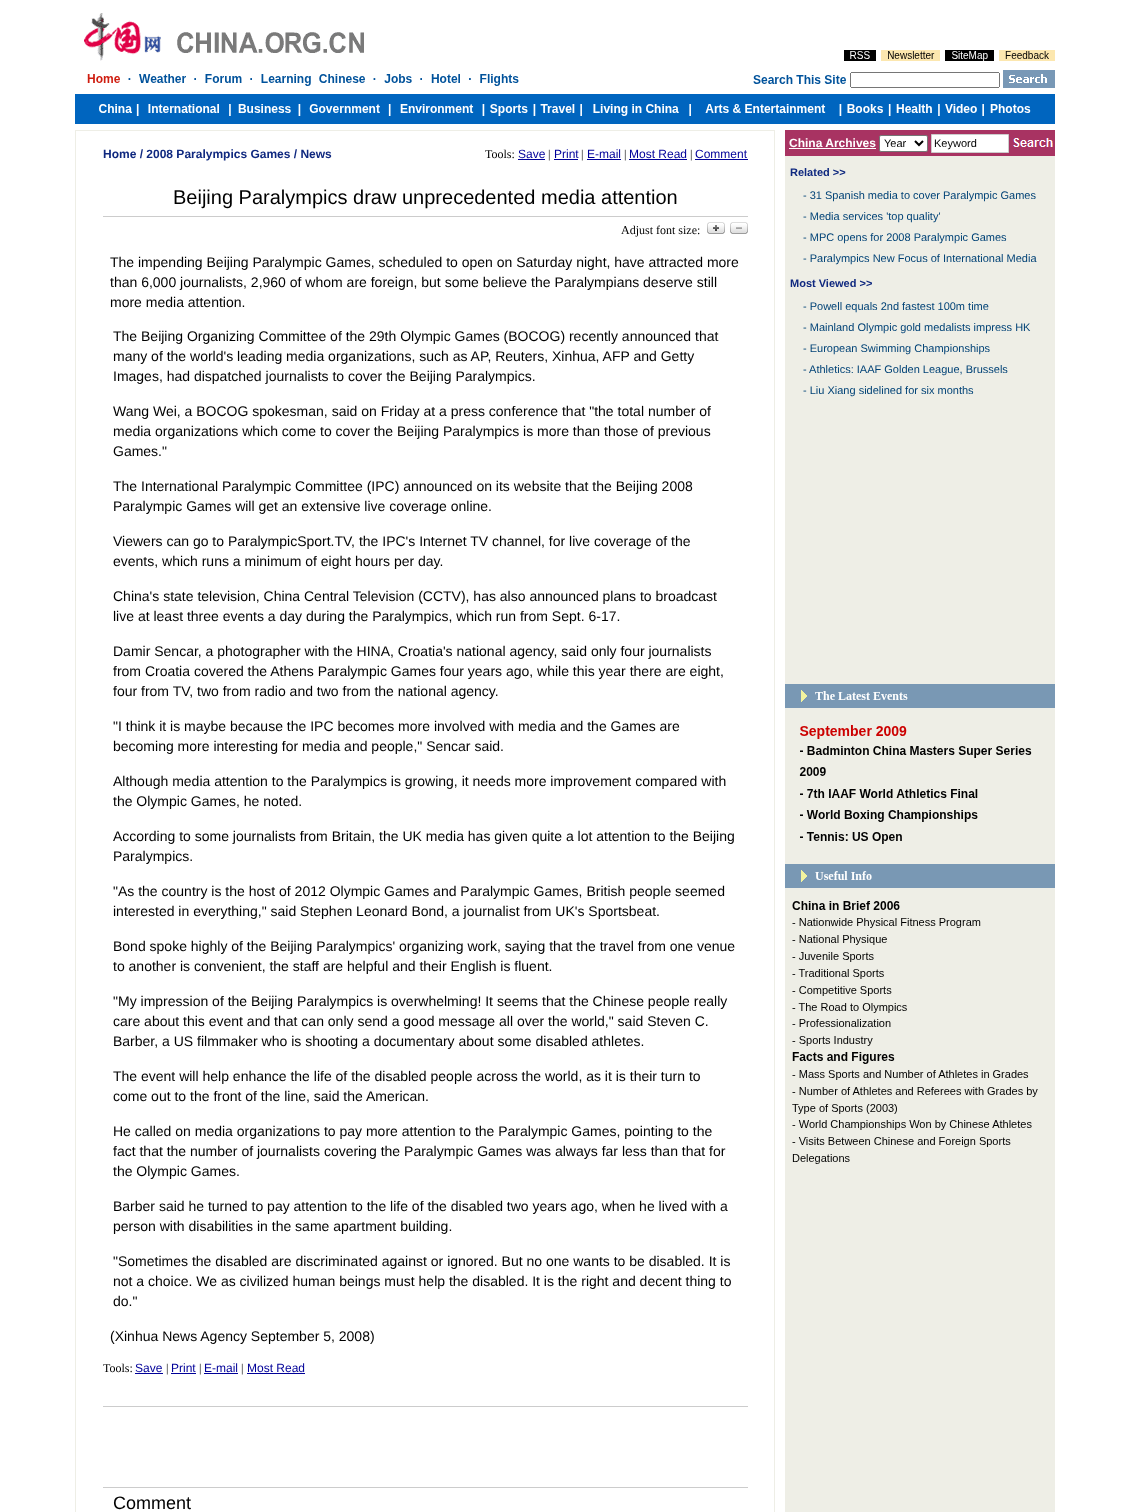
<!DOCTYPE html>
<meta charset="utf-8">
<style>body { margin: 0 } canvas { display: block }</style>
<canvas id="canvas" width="1130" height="1512"></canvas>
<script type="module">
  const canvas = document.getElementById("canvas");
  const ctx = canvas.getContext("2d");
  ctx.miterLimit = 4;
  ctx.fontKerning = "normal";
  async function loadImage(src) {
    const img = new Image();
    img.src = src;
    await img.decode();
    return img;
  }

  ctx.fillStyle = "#ffffff";
  ctx.fillRect(0, 0, 1130, 1512);
  ctx.drawImage(await loadImage("img1.png"), 75, 13, 980, 111);
  ctx.strokeStyle = "#eeeee6";
  ctx.strokeRect(75.5, 130.5, 699, 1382);
  ctx.font = "bold 12px Liberation Sans";
  ctx.fillStyle = "#0f287f";
  ctx.fillText("Home / 2008 Paralympics Games / News", 103, 158);
  ctx.font = "12px Liberation Serif";
  ctx.fillStyle = "#000000";
  ctx.fillText("Tools:", 485, 158);
  ctx.font = "12px Liberation Sans";
  ctx.fillStyle = "#000099";
  ctx.fillText("Save", 518, 158);
  ctx.fillRect(518, 159, 27, 1);
  ctx.font = "12px Liberation Serif";
  ctx.fillStyle = "#000000";
  ctx.fillText("|", 548, 158);
  ctx.font = "12px Liberation Sans";
  ctx.fillStyle = "#000099";
  ctx.fillText("Print", 554, 158);
  ctx.fillRect(554, 159, 24, 1);
  ctx.font = "12px Liberation Serif";
  ctx.fillStyle = "#000000";
  ctx.fillText("|", 581, 158);
  ctx.font = "12px Liberation Sans";
  ctx.fillStyle = "#000099";
  ctx.fillText("E-mail", 587, 158);
  ctx.fillRect(587, 159, 34, 1);
  ctx.font = "12px Liberation Serif";
  ctx.fillStyle = "#000000";
  ctx.fillText("|", 624, 158);
  ctx.font = "12px Liberation Sans";
  ctx.fillStyle = "#000099";
  ctx.fillText("Most Read", 629, 158);
  ctx.fillRect(629, 159, 58, 1);
  ctx.font = "12px Liberation Serif";
  ctx.fillStyle = "#000000";
  ctx.fillText("|", 690, 158);
  ctx.font = "12px Liberation Sans";
  ctx.fillStyle = "#000099";
  ctx.fillText("Comment", 695, 158);
  ctx.fillRect(695, 159, 53, 1);
  ctx.font = "20px Liberation Sans";
  ctx.fillStyle = "#000000";
  ctx.fillText("Beijing Paralympics draw unprecedented media attention", 173, 204);
  ctx.fillStyle = "#cccccc";
  ctx.fillRect(103, 216, 645, 1);
  ctx.font = "12px Liberation Serif";
  ctx.fillStyle = "#000000";
  ctx.fillText("Adjust font size:", 621, 234);
  ctx.drawImage(await loadImage("img2.png"), 707, 222, 18, 12);
  ctx.drawImage(await loadImage("img3.png"), 730, 222, 18, 12);
  ctx.font = "14px Liberation Sans";
  ctx.fillText("The impending Beijing Paralympic Games, scheduled to open on Saturday night, have attracted more", 110, 267);
  ctx.fillText("than 6,000 journalists, 2,960 of whom are foreign, but some believe the Paralympians deserve still", 110, 287);
  ctx.fillText("more media attention.", 110, 307);
  ctx.fillText("The Beijing Organizing Committee of the 29th Olympic Games (BOCOG) recently announced that", 113, 341);
  ctx.fillText("many of the world's leading media organizations, such as AP, Reuters, Xinhua, AFP and Getty", 113, 361);
  ctx.fillText("Images, had dispatched journalists to cover the Beijing Paralympics.", 113, 381);
  ctx.fillText("Wang Wei, a BOCOG spokesman, said on Friday at a press conference that \"the total number of", 113, 416);
  ctx.fillText("media organizations which come to cover the Beijing Paralympics is more than those of previous", 113, 436);
  ctx.fillText("Games.\"", 113, 456);
  ctx.fillText("The International Paralympic Committee (IPC) announced on its website that the Beijing 2008", 113, 491);
  ctx.fillText("Paralympic Games will get an extensive live coverage online.", 113, 511);
  ctx.fillText("Viewers can go to ParalympicSport.TV, the IPC's Internet TV channel, for live coverage of the", 113, 546);
  ctx.fillText("events, which runs a minimum of eight hours per day.", 113, 566);
  ctx.fillText("China's state television, China Central Television (CCTV), has also announced plans to broadcast", 113, 601);
  ctx.fillText("live at least three events a day during the Paralympics, which run from Sept. 6-17.", 113, 621);
  ctx.fillText("Damir Sencar, a photographer with the HINA, Croatia's national agency, said only four journalists", 113, 656);
  ctx.fillText("from Croatia covered the Athens Paralympic Games four years ago, while this year there are eight,", 113, 676);
  ctx.fillText("four from TV, two from radio and two from the national agency.", 113, 696);
  ctx.fillText("\"I think it is maybe because the IPC becomes more involved with media and the Games are", 113, 731);
  ctx.fillText("becoming more interesting for media and people,\" Sencar said.", 113, 751);
  ctx.fillText("Although media attention to the Paralympics is growing, it needs more improvement compared with", 113, 786);
  ctx.fillText("the Olympic Games, he noted.", 113, 806);
  ctx.fillText("According to some journalists from Britain, the UK media has given quite a lot attention to the Beijing", 113, 841);
  ctx.fillText("Paralympics.", 113, 861);
  ctx.fillText("\"As the country is the host of 2012 Olympic Games and Paralympic Games, British people seemed", 113, 896);
  ctx.fillText("interested in everything,\" said Stephen Leonard Bond, a journalist from UK's Sportsbeat.", 113, 916);
  ctx.fillText("Bond spoke highly of the Beijing Paralympics' organizing work, saying that the travel from one venue", 113, 951);
  ctx.fillText("to another is convenient, the staff are helpful and their English is fluent.", 113, 971);
  ctx.fillText("\"My impression of the Beijing Paralympics is overwhelming! It seems that the Chinese people really", 113, 1006);
  ctx.fillText("care about this event and that can only send a good message all over the world,\" said Steven C.", 113, 1026);
  ctx.fillText("Barber, a US filmmaker who is shooting a documentary about some disabled athletes.", 113, 1046);
  ctx.fillText("The event will help enhance the life of the disabled people across the world, as it is their turn to", 113, 1081);
  ctx.fillText("come out to the front of the line, said the American.", 113, 1101);
  ctx.fillText("He called on media organizations to pay more attention to the Paralympic Games, pointing to the", 113, 1136);
  ctx.fillText("fact that the number of journalists covering the Paralympic Games was always far less than that for", 113, 1156);
  ctx.fillText("the Olympic Games.", 113, 1176);
  ctx.fillText("Barber said he turned to pay attention to the life of the disabled two years ago, when he lived with a", 113, 1211);
  ctx.fillText("person with disabilities in the same apartment building.", 113, 1231);
  ctx.fillText("\"Sometimes the disabled are discriminated against or ignored. But no one wants to be disabled. It is", 113, 1266);
  ctx.fillText("not a choice. We as civilized human beings must help the disabled. It is the right and decent thing to", 113, 1286);
  ctx.fillText("do.\"", 113, 1306);
  ctx.fillText("(Xinhua News Agency September 5, 2008)", 110, 1341);
  ctx.font = "12px Liberation Serif";
  ctx.fillText("Tools:", 103, 1372);
  ctx.font = "12px Liberation Sans";
  ctx.fillStyle = "#000099";
  ctx.fillText("Save", 135, 1372);
  ctx.fillRect(135, 1373, 28, 1);
  ctx.font = "12px Liberation Serif";
  ctx.fillStyle = "#000000";
  ctx.fillText("|", 166, 1372);
  ctx.font = "12px Liberation Sans";
  ctx.fillStyle = "#000099";
  ctx.fillText("Print", 171, 1372);
  ctx.fillRect(171, 1373, 25, 1);
  ctx.font = "12px Liberation Serif";
  ctx.fillStyle = "#000000";
  ctx.fillText("|", 199, 1372);
  ctx.font = "12px Liberation Sans";
  ctx.fillStyle = "#000099";
  ctx.fillText("E-mail", 204, 1372);
  ctx.fillRect(204, 1373, 34, 1);
  ctx.font = "12px Liberation Serif";
  ctx.fillStyle = "#000000";
  ctx.fillText("|", 241, 1372);
  ctx.font = "12px Liberation Sans";
  ctx.fillStyle = "#000099";
  ctx.fillText("Most Read", 247, 1372);
  ctx.fillRect(247, 1373, 58, 1);
  ctx.fillStyle = "#cccccc";
  ctx.fillRect(103, 1406, 645, 1);
  ctx.fillRect(103, 1487, 645, 1);
  ctx.font = "18px Liberation Sans";
  ctx.fillStyle = "#000000";
  ctx.fillText("Comment", 113, 1509);
  ctx.fillStyle = "#eeeee6";
  ctx.fillRect(785, 156, 270, 1356);
  ctx.fillStyle = "#a83362";
  ctx.fillRect(785, 130, 270, 26);
  ctx.font = "bold 12px Liberation Sans";
  ctx.fillStyle = "#ffffff";
  ctx.fillText("China Archives", 789, 147);
  ctx.fillRect(789, 148, 87, 1);
  ctx.beginPath();
  ctx.roundRect(879.5, 135.5, 48, 16, 1.5);
  ctx.fill();
  ctx.strokeStyle = "#767676";
  ctx.stroke();
  ctx.beginPath();
  ctx.moveTo(915, 141);
  ctx.lineTo(919, 145);
  ctx.lineTo(923, 141);
  ctx.strokeStyle = "#000000";
  ctx.lineWidth = 2;
  ctx.stroke();
  ctx.font = "11px Liberation Sans";
  ctx.fillStyle = "#000000";
  ctx.fillText("Year", 884, 147);
  ctx.fillStyle = "#ffffff";
  ctx.beginPath();
  ctx.rect(931.5, 134.5, 77, 18);
  ctx.fill();
  ctx.strokeStyle = "#cccccc";
  ctx.lineWidth = 1;
  ctx.stroke();
  ctx.fillStyle = "#000000";
  ctx.fillText("Keyword", 934, 147);
  ctx.drawImage(await loadImage("img4.png"), 1012, 134, 42, 18);
  ctx.font = "bold 11px Liberation Sans";
  ctx.fillStyle = "#0f287f";
  ctx.fillText("Related >>", 790, 176);
  ctx.font = "11px Liberation Sans";
  ctx.fillStyle = "#004276";
  ctx.fillText("- 31 Spanish media to cover Paralympic Games", 803, 199);
  ctx.fillText("- Media services 'top quality'", 803, 220);
  ctx.fillText("- MPC opens for 2008 Paralympic Games", 803, 241);
  ctx.fillText("- Paralympics New Focus of International Media", 803, 262);
  ctx.font = "bold 11px Liberation Sans";
  ctx.fillStyle = "#0f287f";
  ctx.fillText("Most Viewed >>", 790, 287);
  ctx.font = "11px Liberation Sans";
  ctx.fillStyle = "#004276";
  ctx.fillText("- Powell equals 2nd fastest 100m time", 803, 310);
  ctx.fillText("- Mainland Olympic gold medalists impress HK", 803, 331);
  ctx.fillText("- European Swimming Championships", 803, 352);
  ctx.fillText("- Athletics: IAAF Golden League, Brussels", 803, 373);
  ctx.fillText("- Liu Xiang sidelined for six months", 803, 394);
  ctx.drawImage(await loadImage("img5.png"), 785, 684, 270, 480);
</script>
